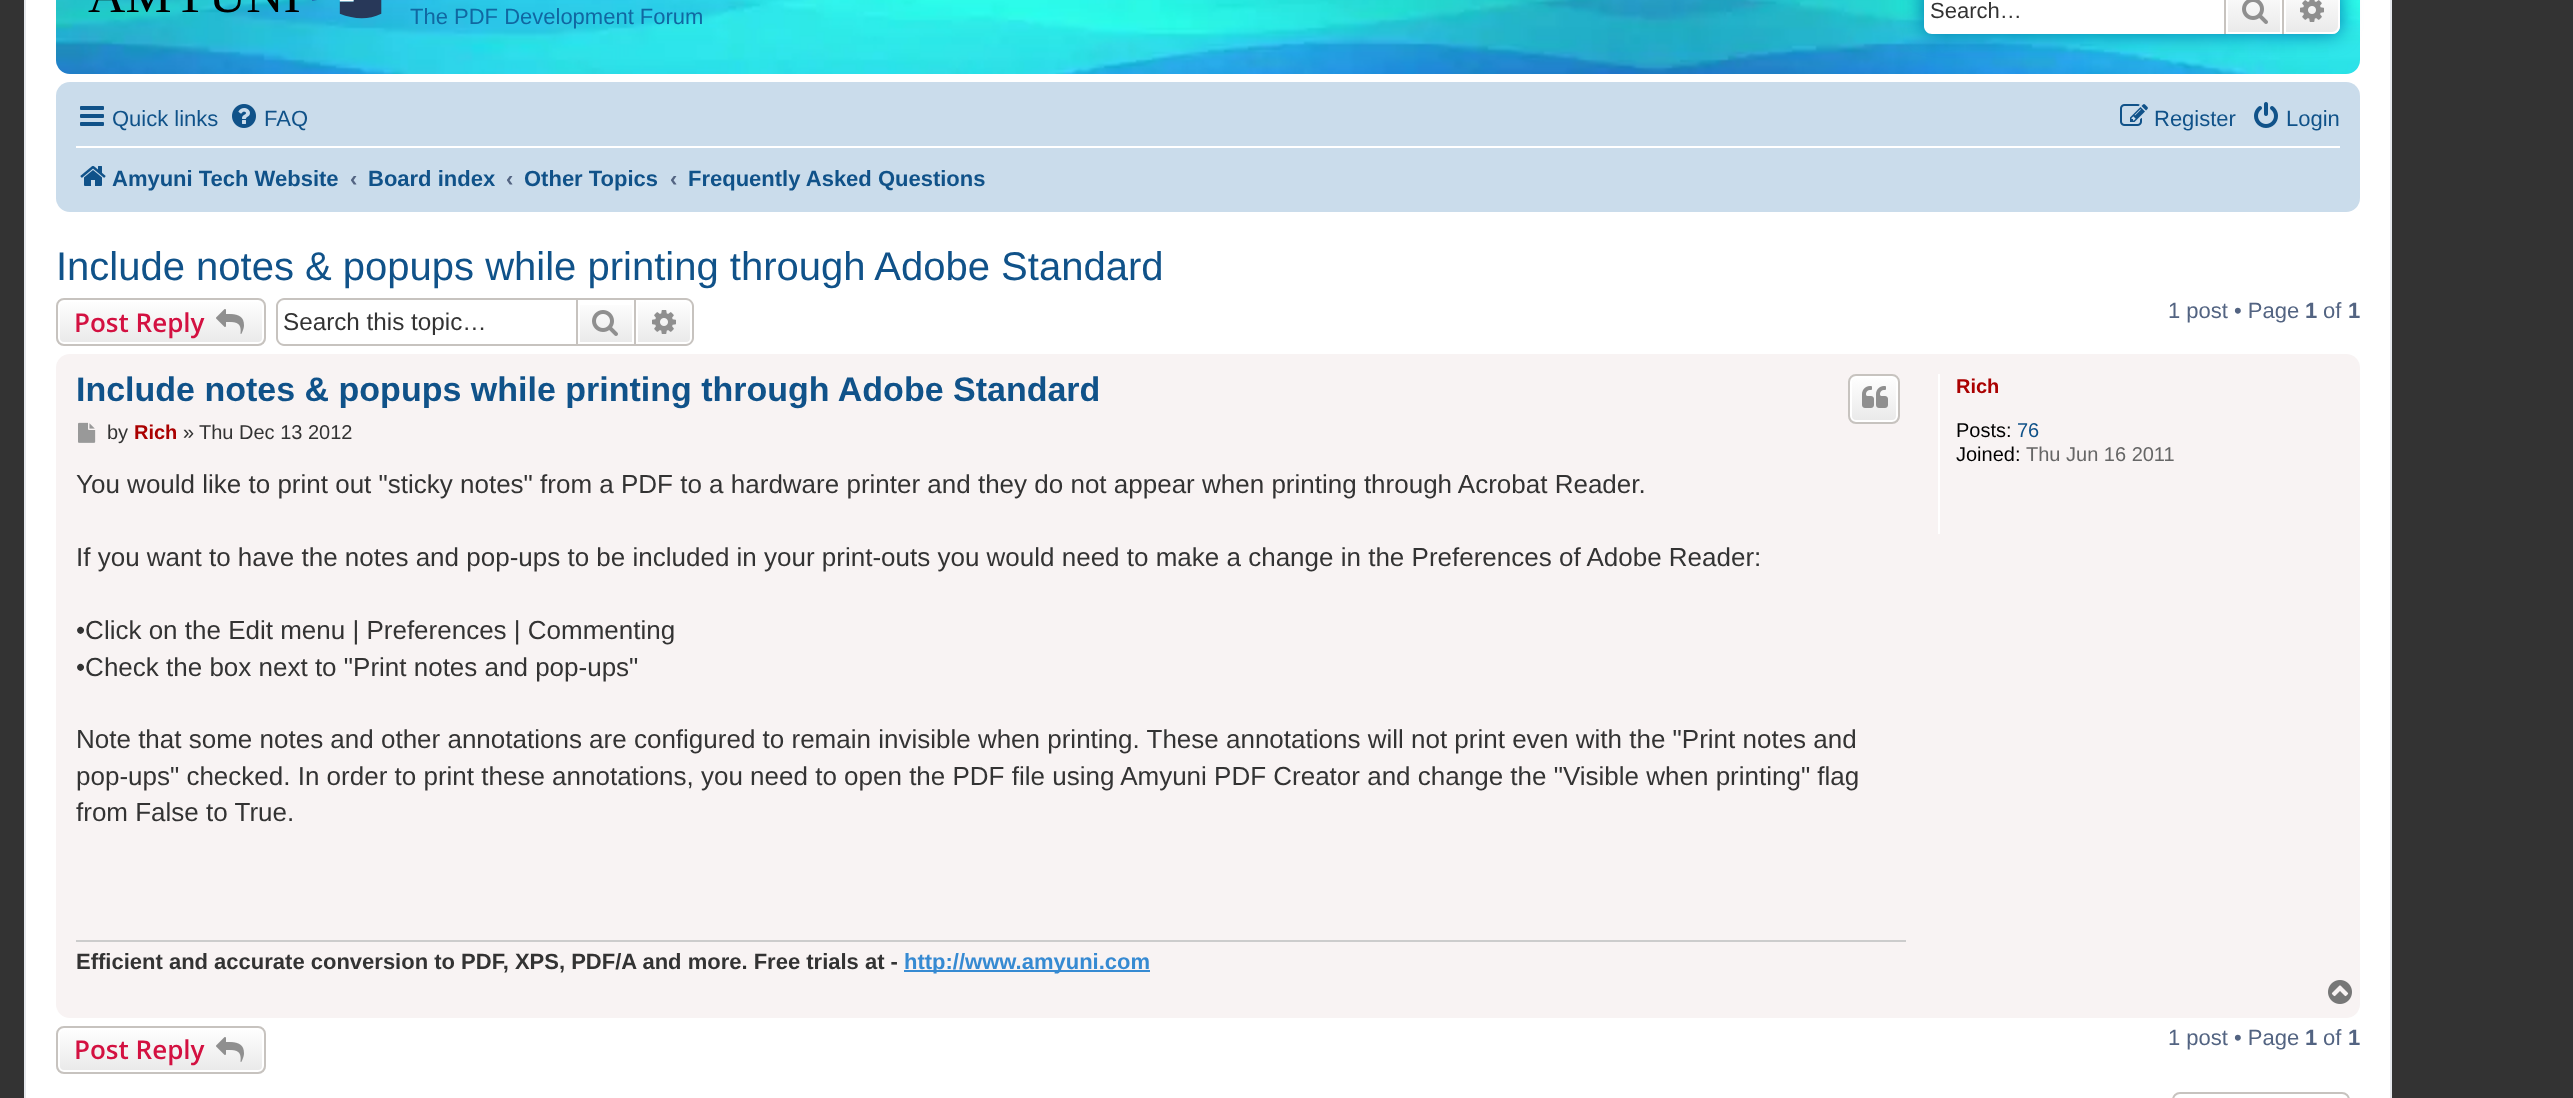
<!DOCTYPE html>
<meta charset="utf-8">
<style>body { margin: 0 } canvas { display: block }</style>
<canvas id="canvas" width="2573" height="1098"></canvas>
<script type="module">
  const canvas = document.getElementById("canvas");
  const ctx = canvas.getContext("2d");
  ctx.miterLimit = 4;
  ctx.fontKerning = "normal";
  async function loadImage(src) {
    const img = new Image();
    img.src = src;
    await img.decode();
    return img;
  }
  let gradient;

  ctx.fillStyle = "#333333";
  ctx.fillRect(0, 0, 2573, 1098);
  ctx.fillStyle = "#ffffff";
  ctx.beginPath();
  ctx.rect(25, -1, 2366, 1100);
  ctx.fill();
  ctx.strokeStyle = "#e6e9ed";
  ctx.lineWidth = 2;
  ctx.stroke();
  ctx.drawImage(await loadImage("img1.png"), 56, 0, 2304, 74);
  ctx.drawImage(await loadImage("img2.png"), 88, 0, 294, 19);
  ctx.font = "22px Liberation Sans";
  ctx.fillStyle = "#1167a1";
  ctx.fillText("The PDF Development Forum", 410, 24);
  ctx.fillStyle = "#0075b0";
  ctx.filter = "blur(10px)";
  ctx.beginPath();
  ctx.roundRect(1924, -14, 416, 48, 8);
  ctx.fill();
  ctx.filter = "none";
  ctx.fillStyle = "#ffffff";
  ctx.beginPath();
  ctx.moveTo(1932, -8);
  ctx.lineTo(2224, -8);
  ctx.lineTo(2224, 34);
  ctx.lineTo(1932, 34);
  ctx.bezierCurveTo(1927.5, 34, 1924, 30.5, 1924, 26);
  ctx.lineTo(1924, 0);
  ctx.bezierCurveTo(1924, -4.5, 1927.5, -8, 1932, -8);
  ctx.closePath();
  ctx.fill();
  ctx.fillStyle = "#333333";
  ctx.fillText("Search…", 1930, 18);
  gradient = ctx.createLinearGradient(2254, -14, 2254, 34);
  gradient.addColorStop(0, "#ffffff");
  gradient.addColorStop(1, "#e9e9e9");
  ctx.fillStyle = gradient;
  ctx.fillRect(2228, 0, 52, 32);
  ctx.strokeStyle = "#ffffff";
  ctx.strokeRect(2227, -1, 54, 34);
  ctx.fillStyle = "#c7c3bf";
  ctx.fillRect(2282, 0, 2, 34);
  ctx.fillRect(2224, 0, 2, 34);
  ctx.drawImage(await loadImage("img3.png"), 2242, 0, 26, 24);
  gradient = ctx.createLinearGradient(2312, -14, 2312, 34);
  gradient.addColorStop(0, "#ffffff");
  gradient.addColorStop(1, "#e9e9e9");
  ctx.fillStyle = gradient;
  ctx.beginPath();
  ctx.moveTo(2284, -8);
  ctx.lineTo(2332, -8);
  ctx.bezierCurveTo(2336.5, -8, 2340, -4.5, 2340, 0);
  ctx.lineTo(2340, 26);
  ctx.bezierCurveTo(2340, 30.5, 2336.5, 34, 2332, 34);
  ctx.lineTo(2284, 34);
  ctx.closePath();
  ctx.fill();
  ctx.beginPath();
  ctx.moveTo(2285, -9);
  ctx.lineTo(2332, -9);
  ctx.bezierCurveTo(2336, -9, 2339, -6, 2339, -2);
  ctx.lineTo(2339, 26);
  ctx.bezierCurveTo(2339, 30, 2336, 33, 2332, 33);
  ctx.lineTo(2285, 33);
  ctx.closePath();
  ctx.stroke();
  ctx.drawImage(await loadImage("img4.png"), 2300, 0, 24, 22);
  ctx.fillStyle = "#cadceb";
  ctx.beginPath();
  ctx.roundRect(56, 82, 2304, 130, 14);
  ctx.fill();
  ctx.drawImage(await loadImage("img5.png"), 80, 106, 24, 20);
  ctx.fillStyle = "#105289";
  ctx.fillText("Quick links", 112, 126);
  ctx.drawImage(await loadImage("img6.png"), 232, 104, 24, 24);
  ctx.fillText("FAQ", 264, 126);
  ctx.drawImage(await loadImage("img7.png"), 2120, 104, 28, 22);
  ctx.fillText("Register", 2154, 126);
  ctx.drawImage(await loadImage("img8.png"), 2254, 102, 24, 26);
  ctx.fillText("Login", 2286, 126);
  ctx.fillStyle = "#ffffff";
  ctx.fillRect(76, 146, 2264, 2);
  ctx.drawImage(await loadImage("img9.png"), 80, 166, 26, 20);
  ctx.font = "bold 22px Liberation Sans";
  ctx.fillStyle = "#105289";
  ctx.fillText("Amyuni Tech Website", 112, 186);
  ctx.fillStyle = "#536482";
  ctx.fillText("‹", 350, 186);
  ctx.fillStyle = "#105289";
  ctx.fillText("Board index", 368, 186);
  ctx.fillStyle = "#536482";
  ctx.fillText("‹", 506, 186);
  ctx.fillStyle = "#105289";
  ctx.fillText("Other Topics", 524, 186);
  ctx.fillStyle = "#536482";
  ctx.fillText("‹", 670, 186);
  ctx.fillStyle = "#105289";
  ctx.fillText("Frequently Asked Questions", 688, 186);
  ctx.font = "40px Liberation Sans";
  ctx.fillText("Include notes & popups while printing through Adobe Standard", 56, 280);
  ctx.save();
  ctx.beginPath();
  ctx.roundRect(56, 298, 210, 48, 8);
  ctx.clip();
  gradient = ctx.createLinearGradient(161, 300, 161, 344);
  gradient.addColorStop(0, "#ffffff");
  gradient.addColorStop(1, "#e9e9e9");
  ctx.fillStyle = gradient;
  ctx.fillRect(56, 300, 210, 44);
  ctx.restore();
  ctx.beginPath();
  ctx.roundRect(59, 301, 204, 42, 5);
  ctx.stroke();
  ctx.beginPath();
  ctx.roundRect(57, 299, 208, 46, 7);
  ctx.strokeStyle = "#c7c3bf";
  ctx.stroke();
  ctx.font = "600 26px Open Sans";
  ctx.fillStyle = "#d31141";
  ctx.fillText("Post Reply", 74, 332);
  ctx.drawImage(await loadImage("img10.png"), 216, 309, 28, 25);
  ctx.fillStyle = "#c7c3bf";
  ctx.beginPath();
  ctx.moveTo(284, 298);
  ctx.lineTo(576, 298);
  ctx.lineTo(576, 346);
  ctx.lineTo(284, 346);
  ctx.bezierCurveTo(280, 346, 276, 342, 276, 338);
  ctx.lineTo(276, 306);
  ctx.bezierCurveTo(276, 302, 280, 298, 284, 298);
  ctx.closePath();
  ctx.moveTo(284, 300);
  ctx.lineTo(576, 300);
  ctx.lineTo(576, 344);
  ctx.lineTo(284, 344);
  ctx.bezierCurveTo(281, 344, 278, 341, 278, 338);
  ctx.lineTo(278, 306);
  ctx.bezierCurveTo(278, 303, 281, 300, 284, 300);
  ctx.closePath();
  ctx.fill("evenodd");
  ctx.font = "24.25px Liberation Sans";
  ctx.fillStyle = "#333333";
  ctx.fillText("Search this topic…", 283, 330);
  gradient = ctx.createLinearGradient(606, 300, 606, 344);
  gradient.addColorStop(0, "#ffffff");
  gradient.addColorStop(1, "#e9e9e9");
  ctx.fillStyle = gradient;
  ctx.fillRect(580, 305, 52, 37);
  ctx.strokeRect(577, 299, 58, 46);
  ctx.drawImage(await loadImage("img11.png"), 592, 310, 26, 26);
  gradient = ctx.createLinearGradient(664, 300, 664, 344);
  gradient.addColorStop(0, "#ffffff");
  gradient.addColorStop(1, "#e9e9e9");
  ctx.fillStyle = gradient;
  ctx.beginPath();
  ctx.roundRect(637, 301, 54, 42, [0, 5, 5, 0]);
  ctx.fill();
  ctx.strokeStyle = "#ffffff";
  ctx.stroke();
  ctx.fillStyle = "#c7c3bf";
  ctx.beginPath();
  ctx.moveTo(636, 298);
  ctx.lineTo(686, 298);
  ctx.bezierCurveTo(690, 298, 694, 302, 694, 306);
  ctx.lineTo(694, 338);
  ctx.bezierCurveTo(694, 342, 690, 346, 686, 346);
  ctx.lineTo(636, 346);
  ctx.closePath();
  ctx.moveTo(636, 300);
  ctx.lineTo(686, 300);
  ctx.bezierCurveTo(689, 300, 692, 303, 692, 306);
  ctx.lineTo(692, 338);
  ctx.bezierCurveTo(692, 341, 689, 344, 686, 344);
  ctx.lineTo(636, 344);
  ctx.closePath();
  ctx.fill("evenodd");
  ctx.drawImage(await loadImage("img12.png"), 652, 310, 24, 24);
  ctx.font = "22px Liberation Sans";
  ctx.fillStyle = "#536482";
  ctx.fillText("1 post • Page", 2168, 318);
  ctx.font = "bold 22px Liberation Sans";
  ctx.fillText("1", 2305, 318);
  ctx.font = "22px Liberation Sans";
  ctx.fillText("of", 2323, 318);
  ctx.font = "bold 22px Liberation Sans";
  ctx.fillText("1", 2348, 318);
  ctx.fillStyle = "#f8f3f3";
  ctx.beginPath();
  ctx.roundRect(56, 354, 2304, 664, 14);
  ctx.fill();
  ctx.font = "bold 34px Liberation Sans";
  ctx.fillStyle = "#105289";
  ctx.fillText("Include notes & popups while printing through Adobe Standard", 76, 401);
  ctx.save();
  ctx.beginPath();
  ctx.roundRect(1848, 374, 52, 50, 8);
  ctx.clip();
  gradient = ctx.createLinearGradient(1874, 376, 1874, 422);
  gradient.addColorStop(0, "#ffffff");
  gradient.addColorStop(1, "#e9e9e9");
  ctx.fillStyle = gradient;
  ctx.fillRect(1848, 376, 52, 46);
  ctx.restore();
  ctx.beginPath();
  ctx.roundRect(1851, 377, 46, 44, 5);
  ctx.stroke();
  ctx.beginPath();
  ctx.roundRect(1849, 375, 50, 48, 7);
  ctx.strokeStyle = "#c7c3bf";
  ctx.stroke();
  ctx.drawImage(await loadImage("img13.png"), 1862, 386, 26, 22);
  ctx.drawImage(await loadImage("img14.png"), 78, 422, 18, 21);
  ctx.font = "20px Liberation Sans";
  ctx.fillStyle = "#333333";
  ctx.fillText("by", 107, 439);
  ctx.font = "bold 20px Liberation Sans";
  ctx.fillStyle = "#aa0000";
  ctx.fillText("Rich", 134, 439);
  ctx.font = "20px Liberation Sans";
  ctx.fillStyle = "#333333";
  ctx.fillText("»", 183, 439);
  ctx.fillText("Thu Dec 13 2012", 199, 439);
  ctx.font = "26px Liberation Sans";
  ctx.fillText("You would like to print out \"sticky notes\" from a PDF to a hardware printer and they do not appear when printing through Acrobat Reader.", 76, 493);
  ctx.fillText("If you want to have the notes and pop-ups to be included in your print-outs you would need to make a change in the Preferences of Adobe Reader:", 76, 566);
  ctx.fillText("•Click on the Edit menu | Preferences | Commenting", 76, 639);
  ctx.fillText("•Check the box next to \"Print notes and pop-ups\"", 76, 676);
  ctx.fillText("Note that some notes and other annotations are configured to remain invisible when printing. These annotations will not print even with the \"Print notes and", 76, 748);
  ctx.fillText("pop-ups\" checked. In order to print these annotations, you need to open the PDF file using Amyuni PDF Creator and change the \"Visible when printing\" flag", 76, 785);
  ctx.fillText("from False to True.", 76, 821);
  ctx.fillStyle = "#cccccc";
  ctx.fillRect(76, 940, 1830, 2);
  ctx.font = "bold 22px Liberation Sans";
  ctx.fillStyle = "#333333";
  ctx.fillText("Efficient and accurate conversion to PDF, XPS, PDF/A and more. Free trials at -", 76, 969);
  ctx.fillStyle = "#368ad2";
  ctx.fillRect(904, 970, 246, 2);
  ctx.fillText("http://www.amyuni.com", 904, 969);
  ctx.fillStyle = "#ffffff";
  ctx.fillRect(1938, 374, 2, 160);
  ctx.font = "bold 20px Liberation Sans";
  ctx.fillStyle = "#aa0000";
  ctx.fillText("Rich", 1956, 393);
  ctx.font = "20px Liberation Sans";
  ctx.fillStyle = "#000000";
  ctx.fillText("Posts:", 1956, 437);
  ctx.fillStyle = "#105289";
  ctx.fillText("76", 2017, 437);
  ctx.fillStyle = "#000000";
  ctx.fillText("Joined:", 1956, 461);
  ctx.fillStyle = "#666666";
  ctx.fillText("Thu Jun 16 2011", 2026, 461);
  ctx.drawImage(await loadImage("img15.png"), 2328, 980, 24, 24);
  ctx.save();
  ctx.beginPath();
  ctx.roundRect(56, 1026, 210, 48, 8);
  ctx.clip();
  gradient = ctx.createLinearGradient(161, 1028, 161, 1072);
  gradient.addColorStop(0, "#ffffff");
  gradient.addColorStop(1, "#e9e9e9");
  ctx.fillStyle = gradient;
  ctx.fillRect(56, 1028, 210, 44);
  ctx.restore();
  ctx.beginPath();
  ctx.roundRect(59, 1029, 204, 42, 5);
  ctx.strokeStyle = "#ffffff";
  ctx.stroke();
  ctx.beginPath();
  ctx.roundRect(57, 1027, 208, 46, 7);
  ctx.strokeStyle = "#c7c3bf";
  ctx.stroke();
  ctx.font = "600 26px Open Sans";
  ctx.fillStyle = "#d31141";
  ctx.fillText("Post Reply", 74, 1059);
  ctx.drawImage(await loadImage("img10.png"), 216, 1037, 28, 25);
  ctx.font = "22px Liberation Sans";
  ctx.fillStyle = "#536482";
  ctx.fillText("1 post • Page", 2168, 1045);
  ctx.font = "bold 22px Liberation Sans";
  ctx.fillText("1", 2305, 1045);
  ctx.font = "22px Liberation Sans";
  ctx.fillText("of", 2323, 1045);
  ctx.font = "bold 22px Liberation Sans";
  ctx.fillText("1", 2348, 1045);
  ctx.beginPath();
  ctx.roundRect(2173, 1093, 176, 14, 7);
  ctx.stroke();
</script>
